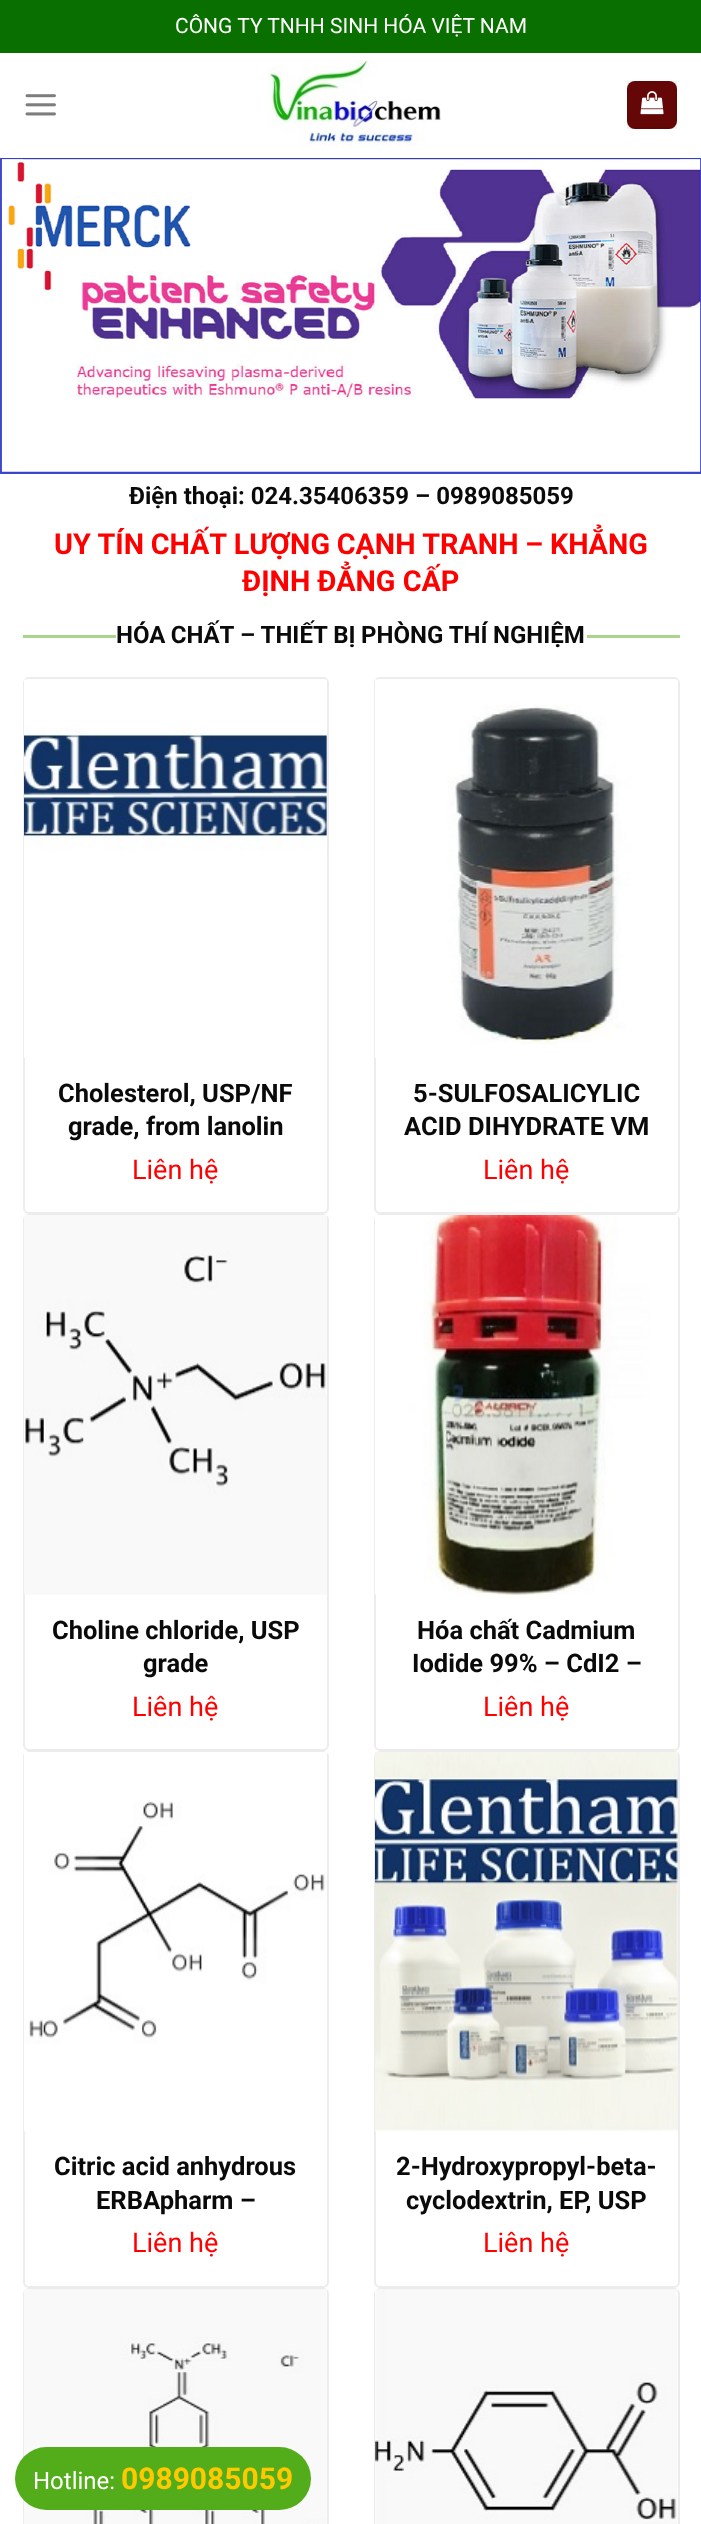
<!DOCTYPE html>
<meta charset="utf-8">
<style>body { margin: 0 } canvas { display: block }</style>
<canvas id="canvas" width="701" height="2524"></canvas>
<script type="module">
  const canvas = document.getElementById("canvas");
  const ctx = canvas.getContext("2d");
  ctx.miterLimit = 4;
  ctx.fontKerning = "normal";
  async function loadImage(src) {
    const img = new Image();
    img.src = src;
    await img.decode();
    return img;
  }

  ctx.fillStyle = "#ffffff";
  ctx.fillRect(0, 0, 701, 2524);
  ctx.fillStyle = "#097000";
  ctx.fillRect(0, 0, 701, 53);
  ctx.font = "21px Roboto";
  ctx.fillStyle = "#ffffff";
  ctx.fillText("CÔNG TY TNHH SINH HÓA VIỆT NAM", 175, 33);
  ctx.drawImage(await loadImage("img1.png"), 25, 94, 31, 22);
  ctx.drawImage(await loadImage("img2.png"), 268, 60, 173, 90);
  ctx.fillStyle = "#660707";
  ctx.beginPath();
  ctx.roundRect(627, 81, 50, 48, 8);
  ctx.fill();
  ctx.strokeStyle = "rgba(0, 0, 0, 0.05)";
  ctx.lineWidth = 2;
  ctx.strokeRect(628, 82, 48, 46);
  ctx.drawImage(await loadImage("img3.png"), 640, 91, 24, 24);
  ctx.drawImage(await loadImage("img4.png"), 0, 158, 701, 316);
  ctx.fillStyle = "rgba(40, 40, 40, 0.1)";
  ctx.fillRect(23, 158, 657, 2);
  ctx.font = "bold 24px Roboto";
  ctx.fillStyle = "#0a0a0a";
  ctx.fillText("Điện thoại: 024.35406359 – 0989085059", 129, 504);
  ctx.wordSpacing = "-0.5px";
  ctx.font = "bold 28.8px Roboto";
  ctx.fillStyle = "#ff0000";
  ctx.fillText("UY TÍN CHẤT LƯỢNG CẠNH TRANH – KHẲNG", 54, 554);
  ctx.wordSpacing = "0px";
  ctx.fillText("ĐỊNH ĐẲNG CẤP", 242, 591);
  ctx.fillStyle = "#a9d68c";
  ctx.fillRect(23, 635, 93, 3);
  ctx.wordSpacing = "-0.5px";
  ctx.font = "bold 24px Roboto";
  ctx.fillStyle = "#0a0a0a";
  ctx.fillText("HÓA CHẤT – THIẾT BỊ PHÒNG THÍ NGHIỆM", 116, 643);
  ctx.fillStyle = "#a9d68c";
  ctx.fillRect(587, 635, 93, 3);
  ctx.beginPath();
  ctx.roundRect(24, 678, 304, 535, 5);
  ctx.strokeStyle = "#ececec";
  ctx.stroke();
  ctx.drawImage(await loadImage("img5.png"), 24, 679, 303, 379);
  ctx.wordSpacing = "0px";
  ctx.font = "bold 25.5px Roboto";
  ctx.fillStyle = "#0a0a0a";
  ctx.fillText("Cholesterol, USP/NF", 58, 1102);
  ctx.fillText("grade, from lanolin", 68, 1135);
  ctx.font = "27px Roboto";
  ctx.fillStyle = "#ff0000";
  ctx.fillText("Liên hệ", 132, 1179);
  ctx.beginPath();
  ctx.roundRect(375, 678, 304, 535, 5);
  ctx.stroke();
  ctx.drawImage(await loadImage("img6.png"), 375, 679, 303, 379);
  ctx.font = "bold 25.5px Roboto";
  ctx.fillStyle = "#0a0a0a";
  ctx.fillText("5-SULFOSALICYLIC", 413, 1102);
  ctx.fillText("ACID DIHYDRATE VM", 404, 1135);
  ctx.font = "27px Roboto";
  ctx.fillStyle = "#ff0000";
  ctx.fillText("Liên hệ", 483, 1179);
  ctx.beginPath();
  ctx.roundRect(24, 1215, 304, 535, 5);
  ctx.stroke();
  ctx.drawImage(await loadImage("img7.png"), 24, 1215, 303, 380);
  ctx.font = "bold 25.5px Roboto";
  ctx.fillStyle = "#0a0a0a";
  ctx.fillText("Choline chloride, USP", 52, 1639);
  ctx.fillText("grade", 143, 1672);
  ctx.font = "27px Roboto";
  ctx.fillStyle = "#ff0000";
  ctx.fillText("Liên hệ", 132, 1716);
  ctx.beginPath();
  ctx.roundRect(375, 1215, 304, 535, 5);
  ctx.stroke();
  ctx.drawImage(await loadImage("img8.png"), 375, 1215, 303, 380);
  ctx.font = "bold 25.5px Roboto";
  ctx.fillStyle = "#0a0a0a";
  ctx.fillText("Hóa chất Cadmium", 417, 1639);
  ctx.fillText("Iodide 99% – CdI2 –", 412, 1672);
  ctx.font = "27px Roboto";
  ctx.fillStyle = "#ff0000";
  ctx.fillText("Liên hệ", 483, 1716);
  ctx.beginPath();
  ctx.roundRect(24, 1752, 304, 535, 5);
  ctx.stroke();
  ctx.drawImage(await loadImage("img9.png"), 24, 1752, 303, 380);
  ctx.font = "bold 25.5px Roboto";
  ctx.fillStyle = "#0a0a0a";
  ctx.fillText("Citric acid anhydrous", 54, 2175);
  ctx.fillText("ERBApharm –", 96, 2209);
  ctx.font = "27px Roboto";
  ctx.fillStyle = "#ff0000";
  ctx.fillText("Liên hệ", 132, 2252);
  ctx.beginPath();
  ctx.roundRect(375, 1752, 304, 535, 5);
  ctx.stroke();
  ctx.drawImage(await loadImage("img10.png"), 375, 1752, 303, 380);
  ctx.font = "bold 25.5px Roboto";
  ctx.fillStyle = "#0a0a0a";
  ctx.fillText("2-Hydroxypropyl-beta-", 396, 2175);
  ctx.fillText("cyclodextrin, EP, USP", 406, 2209);
  ctx.font = "27px Roboto";
  ctx.fillStyle = "#ff0000";
  ctx.fillText("Liên hệ", 483, 2252);
  ctx.beginPath();
  ctx.roundRect(24, 2289, 304, 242, 5);
  ctx.stroke();
  ctx.drawImage(await loadImage("img11.png"), 24, 2289, 303, 235);
  ctx.beginPath();
  ctx.roundRect(375, 2289, 304, 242, 5);
  ctx.stroke();
  ctx.drawImage(await loadImage("img12.png"), 375, 2289, 303, 235);
  ctx.fillStyle = "#53ac19";
  ctx.beginPath();
  ctx.roundRect(15, 2447, 296, 63, 31.5);
  ctx.fill();
  ctx.font = "24px Roboto";
  ctx.fillStyle = "#ffffff";
  ctx.fillText("Hotline:", 33, 2489);
  ctx.font = "bold 30px Roboto";
  ctx.fillStyle = "#fec901";
  ctx.fillText("0989085059", 121, 2489);
</script>
